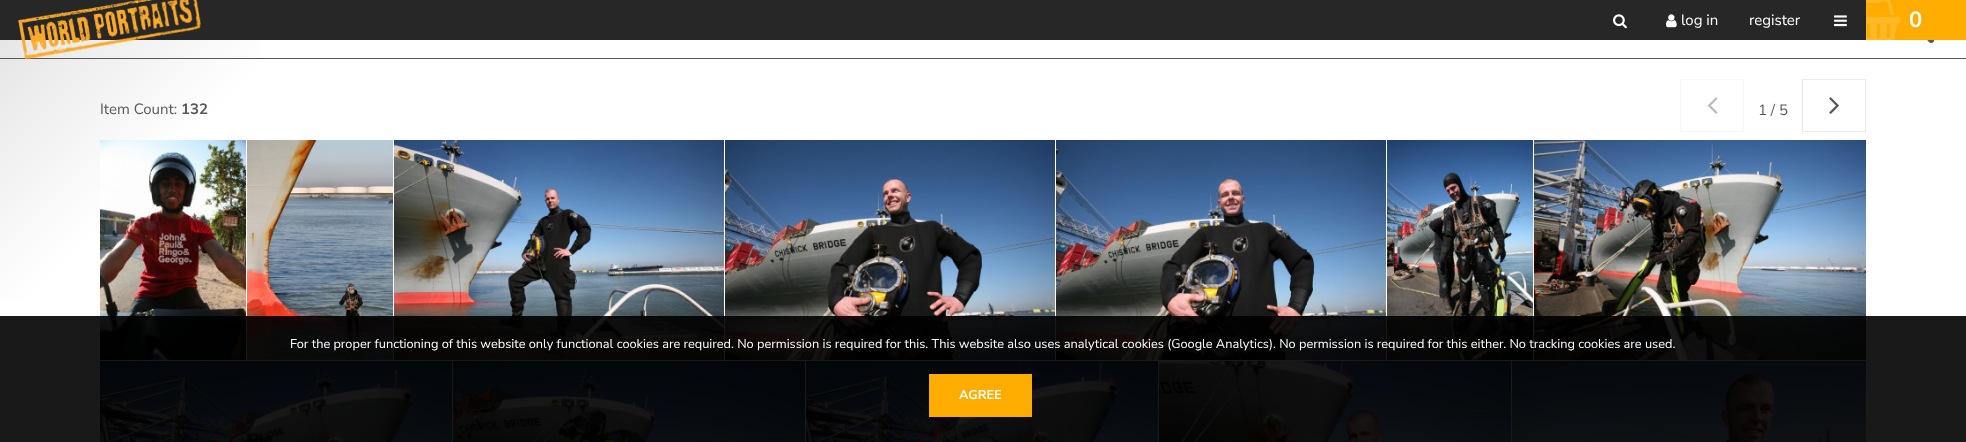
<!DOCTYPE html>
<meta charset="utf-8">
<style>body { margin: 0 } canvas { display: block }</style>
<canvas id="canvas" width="1966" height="442"></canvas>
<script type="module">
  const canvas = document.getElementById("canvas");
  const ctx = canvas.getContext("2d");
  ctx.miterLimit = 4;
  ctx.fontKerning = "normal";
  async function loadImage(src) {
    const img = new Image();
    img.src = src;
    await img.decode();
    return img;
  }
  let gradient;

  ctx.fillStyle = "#ffffff";
  ctx.fillRect(0, 0, 1966, 442);
  gradient = ctx.createLinearGradient(32, -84, 1934, 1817);
  gradient.addColorStop(0, "#dddddd");
  gradient.addColorStop(0.1, "#ffffff");
  ctx.fillStyle = gradient;
  ctx.fillRect(0, 40, 260, 260);
  ctx.fillStyle = "#272727";
  ctx.fillRect(0, 0, 1866, 40);
  ctx.fillStyle = "#585858";
  ctx.fillRect(0, 58, 1966, 1);
  ctx.drawImage(await loadImage("img1.png"), 18, 0, 184, 60);
  ctx.drawImage(await loadImage("img2.png"), 1613, 14, 14, 15);
  ctx.drawImage(await loadImage("img3.png"), 1666, 14, 11, 14);
  ctx.font = "15px Nunito Sans";
  ctx.fillStyle = "#ffffff";
  ctx.fillText("log in", 1681, 25);
  ctx.fillText("register", 1749, 25);
  ctx.drawImage(await loadImage("img4.png"), 1834, 15, 13, 12);
  ctx.fillStyle = "#ffac00";
  ctx.fillRect(1866, 0, 100, 40);
  ctx.drawImage(await loadImage("img5.png"), 1866, 0, 35, 40);
  ctx.font = "bold 22px Nunito Sans";
  ctx.fillStyle = "#ffffff";
  ctx.fillText("0", 1909, 27);
  ctx.drawImage(await loadImage("img6.png"), 1927, 40, 8, 3);
  ctx.font = "15px Nunito Sans";
  ctx.fillStyle = "#585858";
  ctx.fillText("Item Count:", 100, 114);
  ctx.font = "bold 15px Nunito Sans";
  ctx.fillText("132", 181, 114);
  ctx.strokeStyle = "#f7f7f7";
  ctx.strokeRect(1680.5, 79.5, 63, 52);
  ctx.drawImage(await loadImage("img7.png"), 1707, 97, 11, 17);
  ctx.font = "15px Nunito Sans";
  ctx.fillText("1 / 5", 1758, 115);
  ctx.strokeStyle = "#eaeaea";
  ctx.strokeRect(1802.5, 79.5, 63, 52);
  ctx.drawImage(await loadImage("img8.png"), 1829, 97, 10, 17);
  ctx.drawImage(await loadImage("img9.png"), 100, 140, 146, 220);
  ctx.drawImage(await loadImage("img10.png"), 247, 140, 146, 220);
  ctx.drawImage(await loadImage("img11.png"), 394, 140, 330, 220);
  ctx.drawImage(await loadImage("img12.png"), 725, 140, 330, 220);
  ctx.drawImage(await loadImage("img13.png"), 1056, 140, 330, 220);
  ctx.drawImage(await loadImage("img14.png"), 1387, 140, 146, 220);
  ctx.drawImage(await loadImage("img15.png"), 1534, 140, 332, 220);
  ctx.drawImage(await loadImage("img16.png"), 100, 361, 352, 81);
  ctx.drawImage(await loadImage("img17.png"), 453, 361, 352, 81);
  ctx.drawImage(await loadImage("img18.png"), 806, 361, 352, 81);
  ctx.drawImage(await loadImage("img19.png"), 1159, 361, 352, 81);
  ctx.drawImage(await loadImage("img20.png"), 1512, 361, 354, 81);
  ctx.fillStyle = "rgba(0, 0, 0, 0.9)";
  ctx.fillRect(0, 316, 1966, 126);
  ctx.font = "12.75px Nunito Sans";
  ctx.fillStyle = "#ffffff";
  ctx.fillText("For the proper functioning of this website only functional cookies are required. No permission is required for this. This website also uses analytical cookies (Google Analytics). No permission is required for this either. No tracking cookies are used.", 290, 348);
  ctx.fillStyle = "#ffac00";
  ctx.fillRect(929, 374, 103, 43);
  ctx.font = "bold 12.75px Nunito Sans";
  ctx.fillStyle = "#ffffff";
  ctx.fillText("AGREE", 959, 399);
</script>
